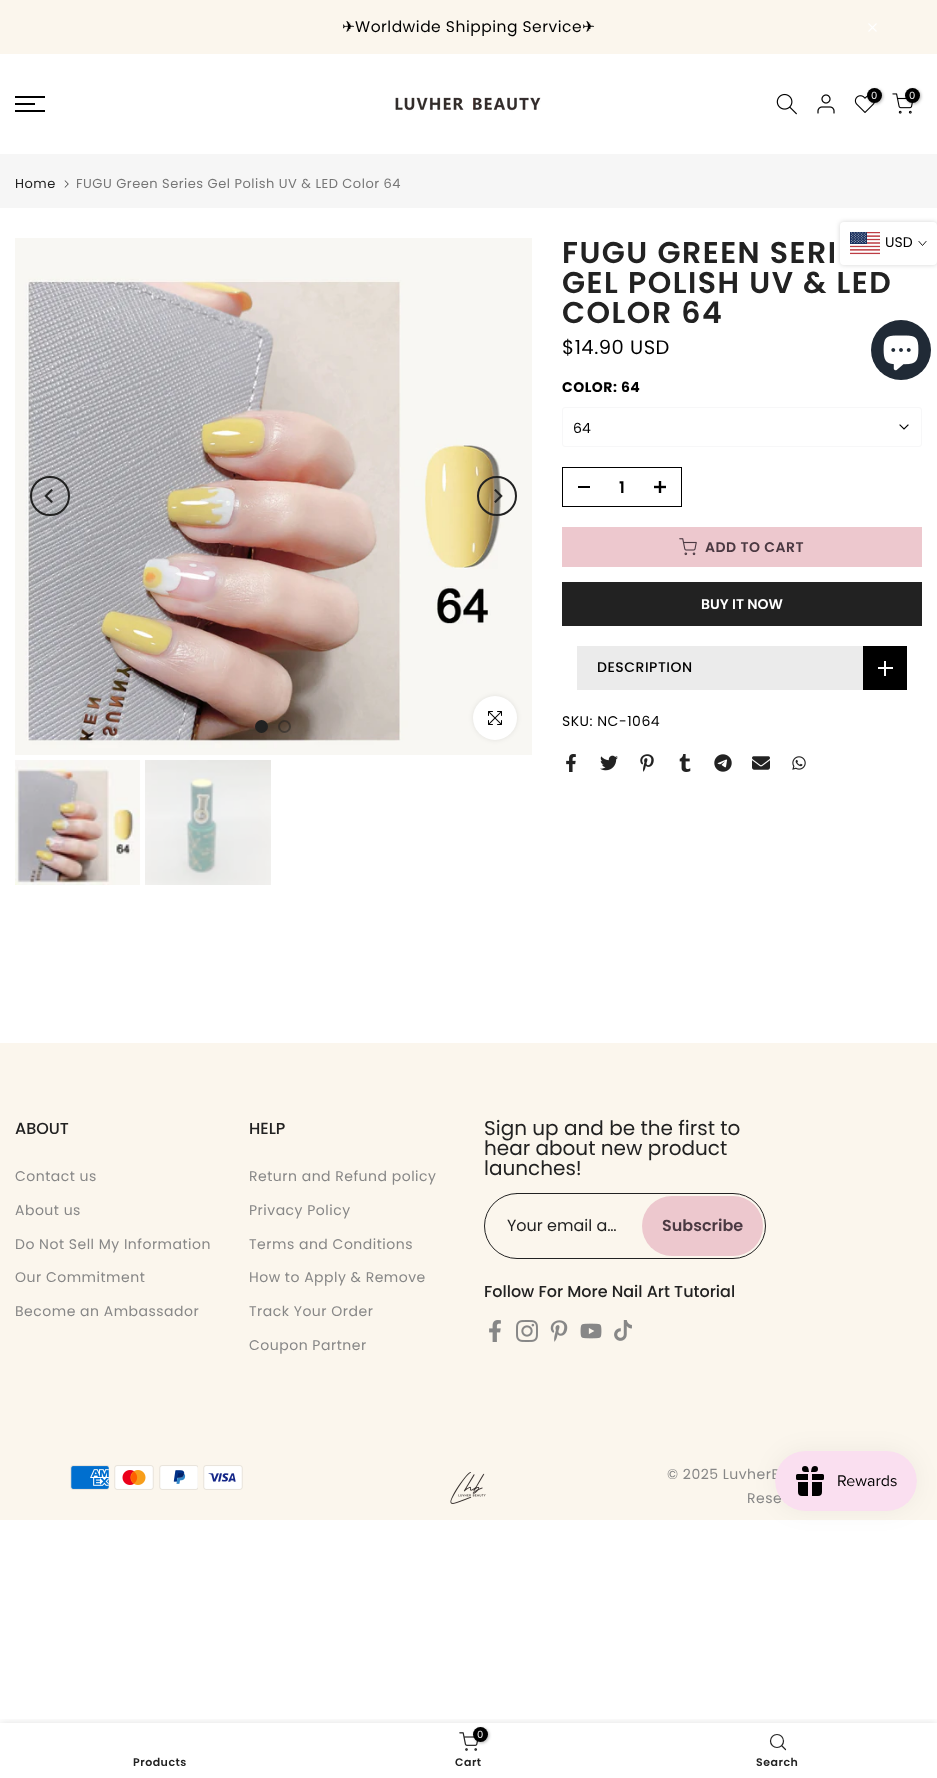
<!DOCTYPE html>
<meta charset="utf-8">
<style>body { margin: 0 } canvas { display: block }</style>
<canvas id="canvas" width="937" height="1778"></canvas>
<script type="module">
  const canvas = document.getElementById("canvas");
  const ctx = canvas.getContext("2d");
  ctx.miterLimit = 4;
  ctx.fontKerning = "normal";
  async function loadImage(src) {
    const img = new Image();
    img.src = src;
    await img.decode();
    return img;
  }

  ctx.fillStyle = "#ffffff";
  ctx.fillRect(0, 0, 937, 1778);
  ctx.fillStyle = "#fbf6ed";
  ctx.fillRect(0, 0, 937, 54);
  ctx.letterSpacing = "0.5px";
  ctx.font = "15.5px DejaVu Sans";
  ctx.fillStyle = "#000000";
  ctx.fillText("✈", 342, 32);
  ctx.font = "15.5px Poppins";
  ctx.fillText("Worldwide Shipping Service", 355, 32);
  ctx.font = "15.5px DejaVu Sans";
  ctx.fillText("✈", 582, 32);
  ctx.beginPath();
  ctx.moveTo(876.5, 23.5);
  ctx.lineTo(868.5, 31.5);
  ctx.moveTo(876.5, 31.5);
  ctx.lineTo(868.5, 23.5);
  ctx.strokeStyle = "#ffffff";
  ctx.lineWidth = 1.1;
  ctx.stroke();
  ctx.drawImage(await loadImage("img1.png"), 776, 93, 21, 22);
  ctx.drawImage(await loadImage("img2.png"), 817, 94, 18, 20);
  ctx.drawImage(await loadImage("img3.png"), 854, 95, 21, 18);
  ctx.fillStyle = "rgba(0, 0, 0, 0.3)";
  ctx.filter = "blur(1.5px)";
  ctx.beginPath();
  ctx.roundRect(868, 89, 15, 15, 7.5);
  ctx.fill();
  ctx.filter = "none";
  ctx.fillStyle = "#000000";
  ctx.beginPath();
  ctx.arc(874.5, 95.5, 7.5, 0, Math.PI * 2);
  ctx.fill();
  ctx.letterSpacing = "0px";
  ctx.font = "10px Poppins";
  ctx.fillStyle = "#f7f7f8";
  ctx.fillText("0", 871, 99);
  ctx.drawImage(await loadImage("img4.png"), 892, 93, 21, 21);
  ctx.fillStyle = "rgba(0, 0, 0, 0.3)";
  ctx.filter = "blur(1.5px)";
  ctx.beginPath();
  ctx.roundRect(906, 89, 15, 15, 7.5);
  ctx.fill();
  ctx.filter = "none";
  ctx.fillStyle = "#000000";
  ctx.beginPath();
  ctx.arc(912.5, 95.5, 7.5, 0, Math.PI * 2);
  ctx.fill();
  ctx.fillStyle = "#f7f7f8";
  ctx.fillText("0", 909, 99);
  ctx.fillStyle = "#000000";
  ctx.fillRect(15, 96, 30, 2);
  ctx.fillRect(15, 103, 20, 2);
  ctx.fillRect(15, 110, 30, 2);
  ctx.drawImage(await loadImage("img5.png"), 395, 97, 146, 14);
  ctx.fillStyle = "#f6f6f6";
  ctx.fillRect(0, 154, 937, 54);
  ctx.letterSpacing = "0.5px";
  ctx.font = "13px Poppins";
  ctx.fillStyle = "#222222";
  ctx.fillText("Home", 15, 188);
  ctx.drawImage(await loadImage("img6.png"), 64, 180, 5, 8);
  ctx.fillStyle = "#777777";
  ctx.fillText("FUGU Green Series Gel Polish UV & LED Color 64", 76, 188);
  ctx.drawImage(await loadImage("img7.png"), 15, 238, 517, 517);
  ctx.beginPath();
  ctx.arc(50, 496, 19, 0, Math.PI * 2);
  ctx.strokeStyle = "#222222";
  ctx.lineWidth = 2;
  ctx.stroke();
  ctx.drawImage(await loadImage("img8.png"), 44, 489, 9, 14);
  ctx.beginPath();
  ctx.arc(497, 496, 19, 0, Math.PI * 2);
  ctx.stroke();
  ctx.drawImage(await loadImage("img9.png"), 494, 489, 9, 14);
  ctx.fillStyle = "#222222";
  ctx.beginPath();
  ctx.arc(261.5, 726.5, 5.5, 0, Math.PI * 2);
  ctx.fill();
  ctx.stroke();
  ctx.beginPath();
  ctx.arc(284.5, 726.5, 5.5, 0, Math.PI * 2);
  ctx.strokeStyle = "rgba(34, 34, 34, 0.5)";
  ctx.stroke();
  ctx.fillStyle = "rgba(0, 0, 0, 0.09)";
  ctx.filter = "blur(2.5px)";
  ctx.beginPath();
  ctx.roundRect(473, 696, 44, 44, 22);
  ctx.fill();
  ctx.filter = "none";
  ctx.fillStyle = "#ffffff";
  ctx.beginPath();
  ctx.arc(495, 718, 22, 0, Math.PI * 2);
  ctx.fill();
  ctx.drawImage(await loadImage("img10.png"), 488, 711, 14, 14);
  ctx.drawImage(await loadImage("img11.png"), 15, 760, 125, 125);
  ctx.drawImage(await loadImage("img12.png"), 145, 760, 126, 125);
  ctx.letterSpacing = "1.5px";
  ctx.font = "600 30px Poppins";
  ctx.fillStyle = "#222222";
  ctx.fillText("FUGU GREEN SERI", 562, 263);
  ctx.fillText("GEL POLISH UV & LED", 562, 293);
  ctx.fillText("COLOR 64", 562, 323);
  ctx.letterSpacing = "0.5px";
  ctx.font = "19.5px Poppins";
  ctx.fillStyle = "#000000";
  ctx.fillText("$14.90 USD", 562, 354);
  ctx.font = "bold 14px Poppins";
  ctx.fillText("COLOR: 64", 562, 392);
  ctx.beginPath();
  ctx.roundRect(562.5, 407.5, 359, 39, 2.5);
  ctx.strokeStyle = "#f7f7f8";
  ctx.lineWidth = 1;
  ctx.stroke();
  ctx.letterSpacing = "0px";
  ctx.font = "14px Poppins";
  ctx.fillText("64", 573, 433);
  ctx.beginPath();
  ctx.moveTo(908, 425);
  ctx.lineTo(904, 429);
  ctx.lineTo(900, 425);
  ctx.strokeStyle = "#000000";
  ctx.lineWidth = 1.1;
  ctx.lineCap = "square";
  ctx.stroke();
  ctx.lineWidth = 1;
  ctx.strokeRect(562.5, 467.5, 119, 39);
  ctx.fillRect(578, 486, 12, 2);
  ctx.font = "600 16px Poppins";
  ctx.fillText("1", 619, 493);
  ctx.drawImage(await loadImage("img13.png"), 654, 481, 12, 12);
  ctx.fillStyle = "#edc8ce";
  ctx.fillRect(562, 527, 360, 40);
  ctx.drawImage(await loadImage("img14.png"), 679, 538, 18, 18);
  ctx.letterSpacing = "0.5px";
  ctx.font = "600 14px Poppins";
  ctx.fillStyle = "#4b3942";
  ctx.fillText("ADD TO CART", 705, 552);
  ctx.fillStyle = "#222222";
  ctx.fillRect(562, 582, 360, 44);
  ctx.letterSpacing = "0px";
  ctx.fillStyle = "#ffffff";
  ctx.fillText("BUY IT NOW", 701, 609);
  ctx.fillStyle = "#ebebeb";
  ctx.fillRect(577, 646, 286, 44);
  ctx.letterSpacing = "0.5px";
  ctx.font = "500 14px Poppins";
  ctx.fillStyle = "#000000";
  ctx.fillText("DESCRIPTION", 597, 672);
  ctx.fillRect(863, 646, 44, 44);
  ctx.fillStyle = "#ffffff";
  ctx.fillRect(884, 661, 2, 15);
  ctx.fillRect(878, 667, 15, 2);
  ctx.font = "14px Poppins";
  ctx.fillStyle = "#000000";
  ctx.fillText("SKU: NC-1064", 562, 726);
  ctx.drawImage(await loadImage("img15.png"), 566, 754, 10, 18);
  ctx.drawImage(await loadImage("img16.png"), 600, 755, 18, 16);
  ctx.drawImage(await loadImage("img17.png"), 640, 754, 14, 18);
  ctx.drawImage(await loadImage("img18.png"), 679, 754, 12, 18);
  ctx.drawImage(await loadImage("img19.png"), 714, 754, 18, 18);
  ctx.drawImage(await loadImage("img20.png"), 752, 756, 18, 14);
  ctx.drawImage(await loadImage("img21.png"), 792, 756, 14, 14);
  ctx.fillStyle = "#fbf6ed";
  ctx.fillRect(0, 1043, 937, 477);
  ctx.letterSpacing = "0px";
  ctx.font = "500 16px Poppins";
  ctx.fillStyle = "#222222";
  ctx.fillText("ABOUT", 15, 1134);
  ctx.letterSpacing = "0.5px";
  ctx.font = "14px Poppins";
  ctx.fillStyle = "#878787";
  ctx.fillText("Contact us", 15, 1181);
  ctx.fillText("About us", 15, 1215);
  ctx.fillText("Do Not Sell My Information", 15, 1249);
  ctx.fillText("Our Commitment", 15, 1282);
  ctx.fillText("Become an Ambassador", 15, 1316);
  ctx.letterSpacing = "0px";
  ctx.font = "500 16px Poppins";
  ctx.fillStyle = "#222222";
  ctx.fillText("HELP", 249, 1134);
  ctx.letterSpacing = "0.5px";
  ctx.font = "14px Poppins";
  ctx.fillStyle = "#878787";
  ctx.fillText("Return and Refund policy", 249, 1181);
  ctx.fillText("Privacy Policy", 249, 1215);
  ctx.fillText("Terms and Conditions", 249, 1249);
  ctx.fillText("How to Apply & Remove", 249, 1282);
  ctx.fillText("Track Your Order", 249, 1316);
  ctx.fillText("Coupon Partner", 249, 1350);
  ctx.letterSpacing = "0px";
  ctx.font = "20px Poppins";
  ctx.fillStyle = "#222222";
  ctx.fillText("Sign up and be the first to", 484, 1135);
  ctx.fillText("hear about new product", 484, 1155);
  ctx.fillText("launches!", 484, 1175);
  ctx.beginPath();
  ctx.roundRect(484.5, 1193.5, 281, 65, 32.5);
  ctx.strokeStyle = "#222222";
  ctx.stroke();
  ctx.font = "16px Poppins";
  ctx.fillText("Your email a…", 507, 1231);
  ctx.fillStyle = "#edc8ce";
  ctx.beginPath();
  ctx.roundRect(642, 1196, 121, 60, 30);
  ctx.fill();
  ctx.font = "600 16px Poppins";
  ctx.fillStyle = "#4b3942";
  ctx.fillText("Subscribe", 662, 1231);
  ctx.font = "500 16px Poppins";
  ctx.fillStyle = "#222222";
  ctx.fillText("Follow For More Nail Art Tutorial", 484, 1297);
  ctx.drawImage(await loadImage("img22.png"), 489, 1320, 12, 22);
  ctx.drawImage(await loadImage("img23.png"), 516, 1320, 22, 22);
  ctx.drawImage(await loadImage("img24.png"), 550, 1320, 18, 22);
  ctx.drawImage(await loadImage("img25.png"), 580, 1323, 22, 16);
  ctx.drawImage(await loadImage("img26.png"), 614, 1320, 18, 21);
  ctx.drawImage(await loadImage("img27.png"), 70, 1465, 39, 25);
  ctx.drawImage(await loadImage("img28.png"), 114, 1465, 40, 25);
  ctx.drawImage(await loadImage("img29.png"), 159, 1465, 39, 25);
  ctx.drawImage(await loadImage("img30.png"), 203, 1465, 40, 25);
  ctx.drawImage(await loadImage("img31.png"), 450, 1472, 36, 32);
  ctx.letterSpacing = "0.5px";
  ctx.font = "14px Poppins";
  ctx.fillStyle = "#878787";
  ctx.fillText("© 2025 LuvherB", 667, 1479);
  ctx.fillText("Rese", 747, 1503);
  ctx.fillStyle = "rgba(0, 0, 0, 0.17)";
  ctx.filter = "blur(2.5px)";
  ctx.beginPath();
  ctx.roundRect(840, 222, 97, 43, 4);
  ctx.fill();
  ctx.filter = "none";
  ctx.fillStyle = "#ffffff";
  ctx.beginPath();
  ctx.roundRect(840, 222, 97, 43, 4);
  ctx.fill();
  ctx.drawImage(await loadImage("img32.png"), 850, 232, 30, 23);
  ctx.letterSpacing = "0px";
  ctx.fillStyle = "#000000";
  ctx.fillText("USD", 885, 247);
  ctx.beginPath();
  ctx.moveTo(926, 241.5);
  ctx.lineTo(922.5, 245.5);
  ctx.lineTo(919, 241.5);
  ctx.strokeStyle = "#000000";
  ctx.lineWidth = 0.9;
  ctx.stroke();
  ctx.fillStyle = "#202a36";
  ctx.beginPath();
  ctx.arc(901, 350, 30, 0, Math.PI * 2);
  ctx.fill();
  ctx.drawImage(await loadImage("img33.png"), 883, 335, 36, 36);
  ctx.fillStyle = "rgba(0, 0, 0, 0.05)";
  ctx.filter = "blur(12.5px)";
  ctx.beginPath();
  ctx.roundRect(775, 1451, 142, 60, 30);
  ctx.fill();
  ctx.filter = "none";
  ctx.drawImage(await loadImage("img34.png"), 775, 1451, 142, 60);
  ctx.save();
  ctx.beginPath();
  ctx.rect(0, 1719, 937, 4);
  ctx.clip();
  ctx.fillStyle = "rgba(0, 0, 0, 0.12)";
  ctx.filter = "blur(4.5px)";
  ctx.beginPath();
  ctx.rect(0, 1723, 937, 55);
  ctx.fill();
  ctx.filter = "none";
  ctx.restore();
  ctx.letterSpacing = "0.5px";
  ctx.font = "600 11px Poppins";
  ctx.fillStyle = "#222222";
  ctx.fillText("Products", 133, 1766);
  ctx.drawImage(await loadImage("img35.png"), 459, 1732, 19, 19);
  ctx.fillStyle = "rgba(0, 0, 0, 0.3)";
  ctx.filter = "blur(1.5px)";
  ctx.beginPath();
  ctx.roundRect(474, 1728, 15, 15, 7.5);
  ctx.fill();
  ctx.filter = "none";
  ctx.fillStyle = "#000000";
  ctx.beginPath();
  ctx.arc(480.5, 1734.5, 7.5, 0, Math.PI * 2);
  ctx.fill();
  ctx.letterSpacing = "0px";
  ctx.font = "10px Poppins";
  ctx.fillStyle = "#f7f7f8";
  ctx.fillText("0", 477, 1738);
  ctx.letterSpacing = "0.5px";
  ctx.font = "600 11px Poppins";
  ctx.fillStyle = "#222222";
  ctx.fillText("Cart", 455, 1766);
  ctx.beginPath();
  ctx.arc(777, 1741, 6.5, 0, Math.PI * 2);
  ctx.strokeStyle = "#222222";
  ctx.lineWidth = 1.2;
  ctx.stroke();
  ctx.beginPath();
  ctx.moveTo(785.5, 1749.5);
  ctx.lineTo(782, 1746);
  ctx.lineCap = "round";
  ctx.lineJoin = "round";
  ctx.stroke();
  ctx.fillText("Search", 756, 1766);
</script>
